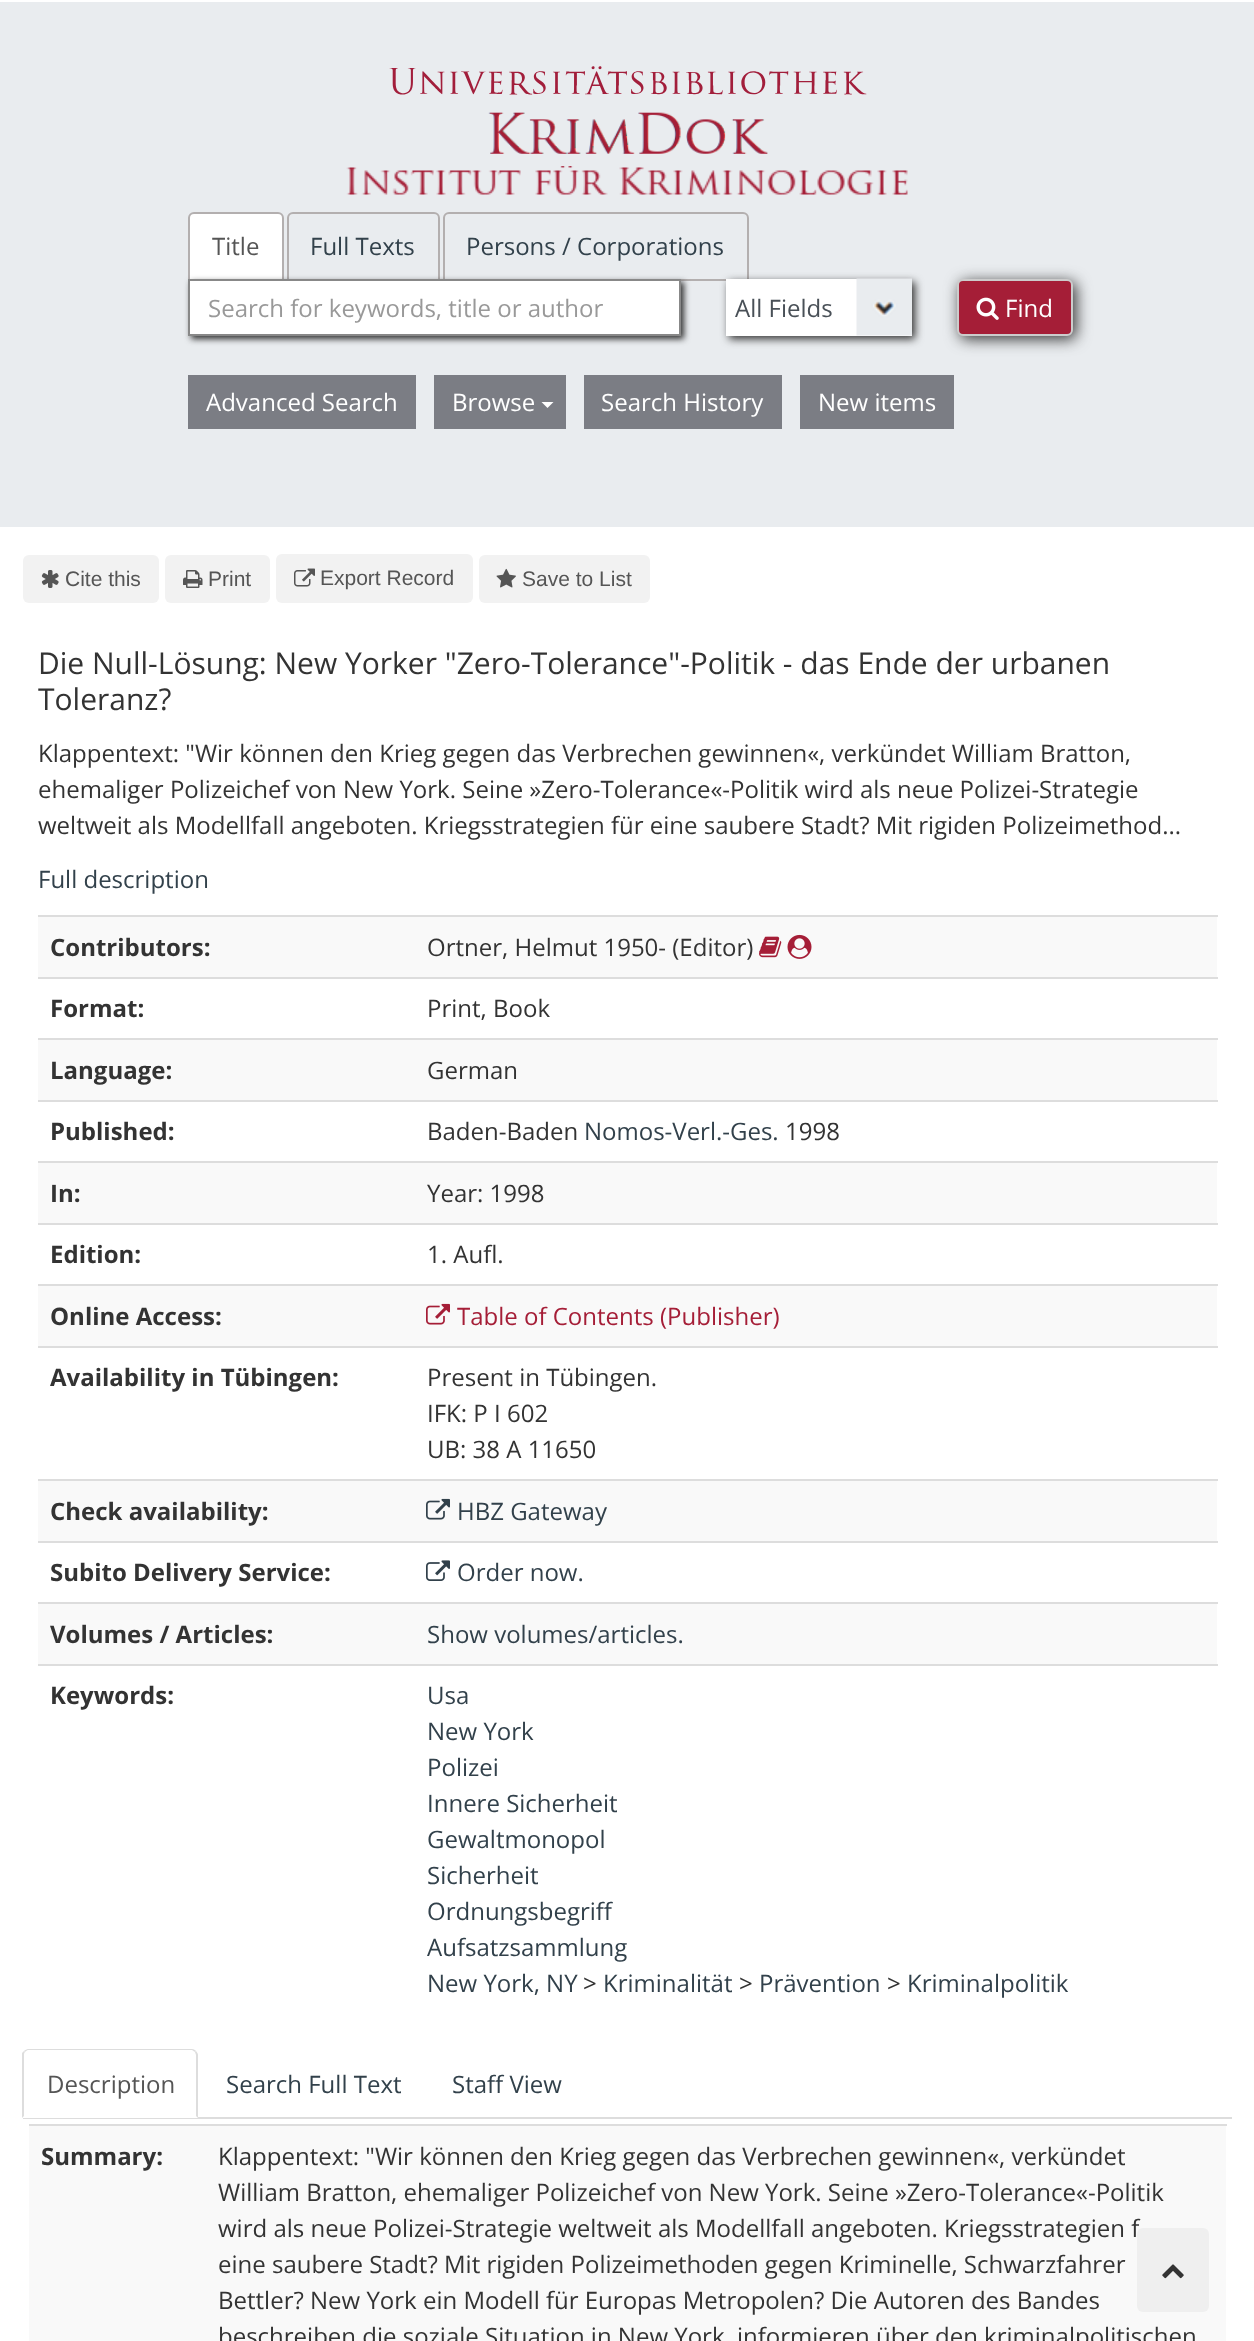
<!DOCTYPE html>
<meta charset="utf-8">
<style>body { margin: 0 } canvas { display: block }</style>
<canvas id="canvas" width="1254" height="2341"></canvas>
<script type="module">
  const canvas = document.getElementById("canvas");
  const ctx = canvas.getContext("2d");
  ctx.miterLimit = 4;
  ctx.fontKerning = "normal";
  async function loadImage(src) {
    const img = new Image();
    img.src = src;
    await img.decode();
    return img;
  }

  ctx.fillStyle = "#ffffff";
  ctx.fillRect(0, 0, 1254, 2341);
  ctx.fillStyle = "#e9ecef";
  ctx.fillRect(0, 2, 1254, 525);
  ctx.drawImage(await loadImage("img1.png"), 389, 66, 478, 29);
  ctx.drawImage(await loadImage("img2.png"), 488, 112, 280, 42);
  ctx.drawImage(await loadImage("img3.png"), 346, 166, 562, 29);
  ctx.fillStyle = "#ffffff";
  ctx.beginPath();
  ctx.roundRect(189, 213, 94, 67, [5, 5, 0, 0]);
  ctx.fill();
  ctx.strokeStyle = "#b3afaf";
  ctx.lineWidth = 2;
  ctx.stroke();
  ctx.font = "24px Open Sans";
  ctx.fillStyle = "#555555";
  ctx.fillText("Title", 212, 255);
  ctx.beginPath();
  ctx.roundRect(288, 213, 151, 67, [5, 5, 0, 0]);
  ctx.stroke();
  ctx.fillStyle = "#32414b";
  ctx.fillText("Full Texts", 310, 255);
  ctx.beginPath();
  ctx.roundRect(444, 213, 304, 67, [5, 5, 0, 0]);
  ctx.stroke();
  ctx.fillText("Persons / Corporations", 466, 255);
  ctx.fillStyle = "#323232";
  ctx.filter = "blur(3px)";
  ctx.beginPath();
  ctx.rect(191, 282, 493, 57);
  ctx.fill();
  ctx.filter = "none";
  ctx.fillStyle = "#ffffff";
  ctx.beginPath();
  ctx.rect(189, 280, 491, 55);
  ctx.fill();
  ctx.strokeStyle = "#888888";
  ctx.stroke();
  ctx.fillStyle = "#999999";
  ctx.fillText("Search for keywords, title or author", 208, 317);
  ctx.fillStyle = "#323232";
  ctx.filter = "blur(4px)";
  ctx.beginPath();
  ctx.rect(729, 282, 186, 57);
  ctx.fill();
  ctx.filter = "none";
  ctx.fillStyle = "#ffffff";
  ctx.fillRect(726, 279, 186, 57);
  ctx.drawImage(await loadImage("img4.png"), 856, 278, 56, 58);
  ctx.fillStyle = "#495057";
  ctx.fillText("All Fields", 735, 317);
  ctx.fillStyle = "#323232";
  ctx.filter = "blur(7.5px)";
  ctx.beginPath();
  ctx.roundRect(960, 282, 116, 57, 6);
  ctx.fill();
  ctx.filter = "none";
  ctx.fillStyle = "#a51e37";
  ctx.beginPath();
  ctx.roundRect(958, 280, 114, 55, 5);
  ctx.fill();
  ctx.strokeStyle = "#cccccc";
  ctx.stroke();
  ctx.drawImage(await loadImage("img5.png"), 976, 297, 23, 23);
  ctx.fillStyle = "#ffffff";
  ctx.fillText("Find", 1005, 317);
  ctx.fillStyle = "#7b7d84";
  ctx.fillRect(188, 375, 228, 54);
  ctx.fillStyle = "#ffffff";
  ctx.fillText("Advanced Search", 206, 411);
  ctx.fillStyle = "#7b7d84";
  ctx.fillRect(434, 375, 132, 54);
  ctx.fillStyle = "#ffffff";
  ctx.fillText("Browse", 452, 411);
  ctx.beginPath();
  ctx.moveTo(541.5, 402);
  ctx.lineTo(553.5, 402);
  ctx.lineTo(547.5, 408);
  ctx.closePath();
  ctx.fill();
  ctx.fillStyle = "#7b7d84";
  ctx.fillRect(584, 375, 198, 54);
  ctx.fillStyle = "#ffffff";
  ctx.fillText("Search History", 601, 411);
  ctx.fillStyle = "#7b7d84";
  ctx.fillRect(800, 375, 154, 54);
  ctx.fillStyle = "#ffffff";
  ctx.fillText("New items", 818, 411);
  ctx.fillStyle = "#f2f2f2";
  ctx.beginPath();
  ctx.roundRect(23, 555, 136, 48, 6);
  ctx.fill();
  ctx.drawImage(await loadImage("img6.png"), 41, 570, 18, 18);
  ctx.font = "21px Liberation Sans";
  ctx.fillStyle = "#555555";
  ctx.fillText("Cite this", 65, 586);
  ctx.fillStyle = "#f2f2f2";
  ctx.beginPath();
  ctx.roundRect(165, 555, 105, 48, 6);
  ctx.fill();
  ctx.drawImage(await loadImage("img7.png"), 183, 570, 20, 18);
  ctx.fillStyle = "#555555";
  ctx.fillText("Print", 208, 586);
  ctx.fillStyle = "#f2f2f2";
  ctx.beginPath();
  ctx.roundRect(276, 554, 197, 49, 6);
  ctx.fill();
  ctx.drawImage(await loadImage("img8.png"), 294, 568, 21, 19);
  ctx.fillStyle = "#555555";
  ctx.fillText("Export Record", 320, 585);
  ctx.fillStyle = "#f2f2f2";
  ctx.beginPath();
  ctx.roundRect(479, 555, 171, 48, 6);
  ctx.fill();
  ctx.drawImage(await loadImage("img9.png"), 496, 568, 20, 20);
  ctx.fillStyle = "#555555";
  ctx.fillText("Save to List", 522, 586);
  ctx.font = "30px Open Sans";
  ctx.fillStyle = "#333333";
  ctx.fillText("Die Null-Lösung: New Yorker \"Zero-Tolerance\"-Politik - das Ende der urbanen", 38, 674);
  ctx.fillText("Toleranz?", 38, 710);
  ctx.font = "24px Open Sans";
  ctx.fillText("Klappentext: \"Wir können den Krieg gegen das Verbrechen gewinnen«, verkündet William Bratton,", 38, 762);
  ctx.fillText("ehemaliger Polizeichef von New York. Seine »Zero-Tolerance«-Politik wird als neue Polizei-Strategie", 38, 798);
  ctx.fillText("weltweit als Modellfall angeboten. Kriegsstrategien für eine saubere Stadt? Mit rigiden Polizeimethod...", 38, 834);
  ctx.fillStyle = "#32414b";
  ctx.fillText("Full description", 38, 888);
  ctx.fillStyle = "#f9f9f9";
  ctx.fillRect(38, 917, 1179, 60);
  ctx.font = "bold 24px Open Sans";
  ctx.fillStyle = "#333333";
  ctx.fillText("Contributors:", 50, 956);
  ctx.fillStyle = "#dddddd";
  ctx.fillRect(38, 915, 1180, 2);
  ctx.font = "24px Open Sans";
  ctx.fillStyle = "#333333";
  ctx.fillText("Ortner, Helmut 1950- (Editor)", 427, 956);
  ctx.drawImage(await loadImage("img10.png"), 759, 936, 23, 22);
  ctx.drawImage(await loadImage("img11.png"), 787, 934, 25, 25);
  ctx.font = "bold 24px Open Sans";
  ctx.fillText("Format:", 50, 1017);
  ctx.fillStyle = "#dddddd";
  ctx.fillRect(38, 977, 1180, 2);
  ctx.font = "24px Open Sans";
  ctx.fillStyle = "#333333";
  ctx.fillText("Print, Book", 427, 1017);
  ctx.fillStyle = "#f9f9f9";
  ctx.fillRect(38, 1040, 1179, 60);
  ctx.font = "bold 24px Open Sans";
  ctx.fillStyle = "#333333";
  ctx.fillText("Language:", 50, 1079);
  ctx.fillStyle = "#dddddd";
  ctx.fillRect(38, 1038, 1180, 2);
  ctx.font = "24px Open Sans";
  ctx.fillStyle = "#333333";
  ctx.fillText("German", 427, 1079);
  ctx.font = "bold 24px Open Sans";
  ctx.fillText("Published:", 50, 1140);
  ctx.fillStyle = "#dddddd";
  ctx.fillRect(38, 1100, 1180, 2);
  ctx.font = "24px Open Sans";
  ctx.fillStyle = "#333333";
  ctx.fillText("Baden-Baden", 427, 1140);
  ctx.fillStyle = "#32414b";
  ctx.fillText("Nomos-Verl.-Ges.", 584, 1140);
  ctx.fillStyle = "#333333";
  ctx.fillText("1998", 785, 1140);
  ctx.fillStyle = "#f9f9f9";
  ctx.fillRect(38, 1163, 1179, 60);
  ctx.font = "bold 24px Open Sans";
  ctx.fillStyle = "#333333";
  ctx.fillText("In:", 50, 1202);
  ctx.fillStyle = "#dddddd";
  ctx.fillRect(38, 1161, 1180, 2);
  ctx.font = "24px Open Sans";
  ctx.fillStyle = "#333333";
  ctx.fillText("Year: 1998", 427, 1202);
  ctx.font = "bold 24px Open Sans";
  ctx.fillText("Edition:", 50, 1263);
  ctx.fillStyle = "#dddddd";
  ctx.fillRect(38, 1223, 1180, 2);
  ctx.font = "24px Open Sans";
  ctx.fillStyle = "#333333";
  ctx.fillText("1. Aufl.", 427, 1263);
  ctx.fillStyle = "#f9f9f9";
  ctx.fillRect(38, 1286, 1179, 60);
  ctx.font = "bold 24px Open Sans";
  ctx.fillStyle = "#333333";
  ctx.fillText("Online Access:", 50, 1325);
  ctx.fillStyle = "#dddddd";
  ctx.fillRect(38, 1284, 1180, 2);
  ctx.drawImage(await loadImage("img12.png"), 426, 1303, 24, 22);
  ctx.font = "24px Open Sans";
  ctx.fillStyle = "#a51e37";
  ctx.fillText("Table of Contents (Publisher)", 457, 1325);
  ctx.font = "bold 24px Open Sans";
  ctx.fillStyle = "#333333";
  ctx.fillText("Availability in Tübingen:", 50, 1386);
  ctx.fillStyle = "#dddddd";
  ctx.fillRect(38, 1346, 1180, 2);
  ctx.font = "24px Open Sans";
  ctx.fillStyle = "#333333";
  ctx.fillText("Present in Tübingen.", 427, 1386);
  ctx.fillText("IFK: P I 602", 427, 1422);
  ctx.fillText("UB: 38 A 11650", 427, 1458);
  ctx.fillStyle = "#f9f9f9";
  ctx.fillRect(38, 1481, 1179, 60);
  ctx.font = "bold 24px Open Sans";
  ctx.fillStyle = "#333333";
  ctx.fillText("Check availability:", 50, 1520);
  ctx.fillStyle = "#dddddd";
  ctx.fillRect(38, 1479, 1180, 2);
  ctx.drawImage(await loadImage("img13.png"), 426, 1498, 24, 22);
  ctx.font = "24px Open Sans";
  ctx.fillStyle = "#32414b";
  ctx.fillText("HBZ Gateway", 457, 1520);
  ctx.font = "bold 24px Open Sans";
  ctx.fillStyle = "#333333";
  ctx.fillText("Subito Delivery Service:", 50, 1581);
  ctx.fillStyle = "#dddddd";
  ctx.fillRect(38, 1541, 1180, 2);
  ctx.drawImage(await loadImage("img14.png"), 426, 1560, 24, 21);
  ctx.font = "24px Open Sans";
  ctx.fillStyle = "#32414b";
  ctx.fillText("Order now.", 457, 1581);
  ctx.fillStyle = "#f9f9f9";
  ctx.fillRect(38, 1604, 1179, 60);
  ctx.font = "bold 24px Open Sans";
  ctx.fillStyle = "#333333";
  ctx.fillText("Volumes / Articles:", 50, 1643);
  ctx.fillStyle = "#dddddd";
  ctx.fillRect(38, 1602, 1180, 2);
  ctx.font = "24px Open Sans";
  ctx.fillStyle = "#32414b";
  ctx.fillText("Show volumes/articles.", 427, 1643);
  ctx.font = "bold 24px Open Sans";
  ctx.fillStyle = "#333333";
  ctx.fillText("Keywords:", 50, 1704);
  ctx.fillStyle = "#dddddd";
  ctx.fillRect(38, 1664, 1180, 2);
  ctx.font = "24px Open Sans";
  ctx.fillStyle = "#32414b";
  ctx.fillText("Usa", 427, 1704);
  ctx.fillText("New York", 427, 1740);
  ctx.fillText("Polizei", 427, 1776);
  ctx.fillText("Innere Sicherheit", 427, 1812);
  ctx.fillText("Gewaltmonopol", 427, 1848);
  ctx.fillText("Sicherheit", 427, 1884);
  ctx.fillText("Ordnungsbegriff", 427, 1920);
  ctx.fillText("Aufsatzsammlung", 427, 1956);
  ctx.fillText("New York, NY", 427, 1992);
  ctx.fillStyle = "#333333";
  ctx.fillText(">", 583, 1992);
  ctx.fillStyle = "#32414b";
  ctx.fillText("Kriminalität", 603, 1992);
  ctx.fillStyle = "#333333";
  ctx.fillText(">", 739, 1992);
  ctx.fillStyle = "#32414b";
  ctx.fillText("Prävention", 759, 1992);
  ctx.fillStyle = "#333333";
  ctx.fillText(">", 887, 1992);
  ctx.fillStyle = "#32414b";
  ctx.fillText("Kriminalpolitik", 907, 1992);
  ctx.fillStyle = "#dddddd";
  ctx.fillRect(23, 2117, 1209, 2);
  ctx.fillStyle = "#ffffff";
  ctx.beginPath();
  ctx.roundRect(23, 2049, 175, 69, [6, 6, 0, 0]);
  ctx.fill();
  ctx.fillStyle = "#dddddd";
  ctx.beginPath();
  ctx.moveTo(28, 2049);
  ctx.bezierCurveTo(27, 2049, 25, 2050, 24, 2051);
  ctx.lineTo(25, 2052);
  ctx.bezierCurveTo(26, 2051, 27, 2050, 28, 2050);
  ctx.lineTo(192, 2050);
  ctx.lineTo(195, 2052);
  ctx.lineTo(196, 2051);
  ctx.bezierCurveTo(195, 2050, 194, 2049, 192, 2049);
  ctx.closePath();
  ctx.fill();
  ctx.beginPath();
  ctx.moveTo(198, 2118);
  ctx.lineTo(198, 2055);
  ctx.bezierCurveTo(198, 2054, 197, 2052, 196, 2051);
  ctx.lineTo(195, 2052);
  ctx.lineTo(196, 2055);
  ctx.lineTo(196, 2116);
  ctx.closePath();
  ctx.fill();
  ctx.beginPath();
  ctx.moveTo(22, 2118);
  ctx.lineTo(22, 2053);
  ctx.lineTo(24, 2051);
  ctx.lineTo(25, 2052);
  ctx.bezierCurveTo(24, 2053, 24, 2054, 24, 2055);
  ctx.lineTo(24, 2116);
  ctx.closePath();
  ctx.fill();
  ctx.fillStyle = "#555555";
  ctx.fillText("Description", 47, 2093);
  ctx.fillStyle = "#32414b";
  ctx.fillText("Search Full Text", 226, 2093);
  ctx.fillText("Staff View", 452, 2093);
  ctx.fillStyle = "#f9f9f9";
  ctx.fillRect(29, 2126, 1197, 215);
  ctx.font = "bold 24px Open Sans";
  ctx.fillStyle = "#333333";
  ctx.fillText("Summary:", 41, 2165);
  ctx.fillStyle = "#dddddd";
  ctx.fillRect(29, 2124, 1198, 2);
  ctx.font = "24px Open Sans";
  ctx.fillStyle = "#333333";
  ctx.fillText("Klappentext: \"Wir können den Krieg gegen das Verbrechen gewinnen«, verkündet", 218, 2165);
  ctx.fillText("William Bratton, ehemaliger Polizeichef von New York. Seine »Zero-Tolerance«-Politik", 218, 2201);
  ctx.fillText("wird als neue Polizei-Strategie weltweit als Modellfall angeboten. Kriegsstrategien f", 218, 2237);
  ctx.fillText("eine saubere Stadt? Mit rigiden Polizeimethoden gegen Kriminelle, Schwarzfahrer", 218, 2273);
  ctx.fillText("Bettler? New York ein Modell für Europas Metropolen? Die Autoren des Bandes", 218, 2309);
  ctx.fillText("beschreiben die soziale Situation in New York, informieren über den kriminalpolitischen", 218, 2345);
  ctx.fillStyle = "#efefef";
  ctx.beginPath();
  ctx.roundRect(1137, 2228, 72, 84, 6);
  ctx.fill();
  ctx.drawImage(await loadImage("img15.png"), 1162, 2264, 22, 15);
</script>
